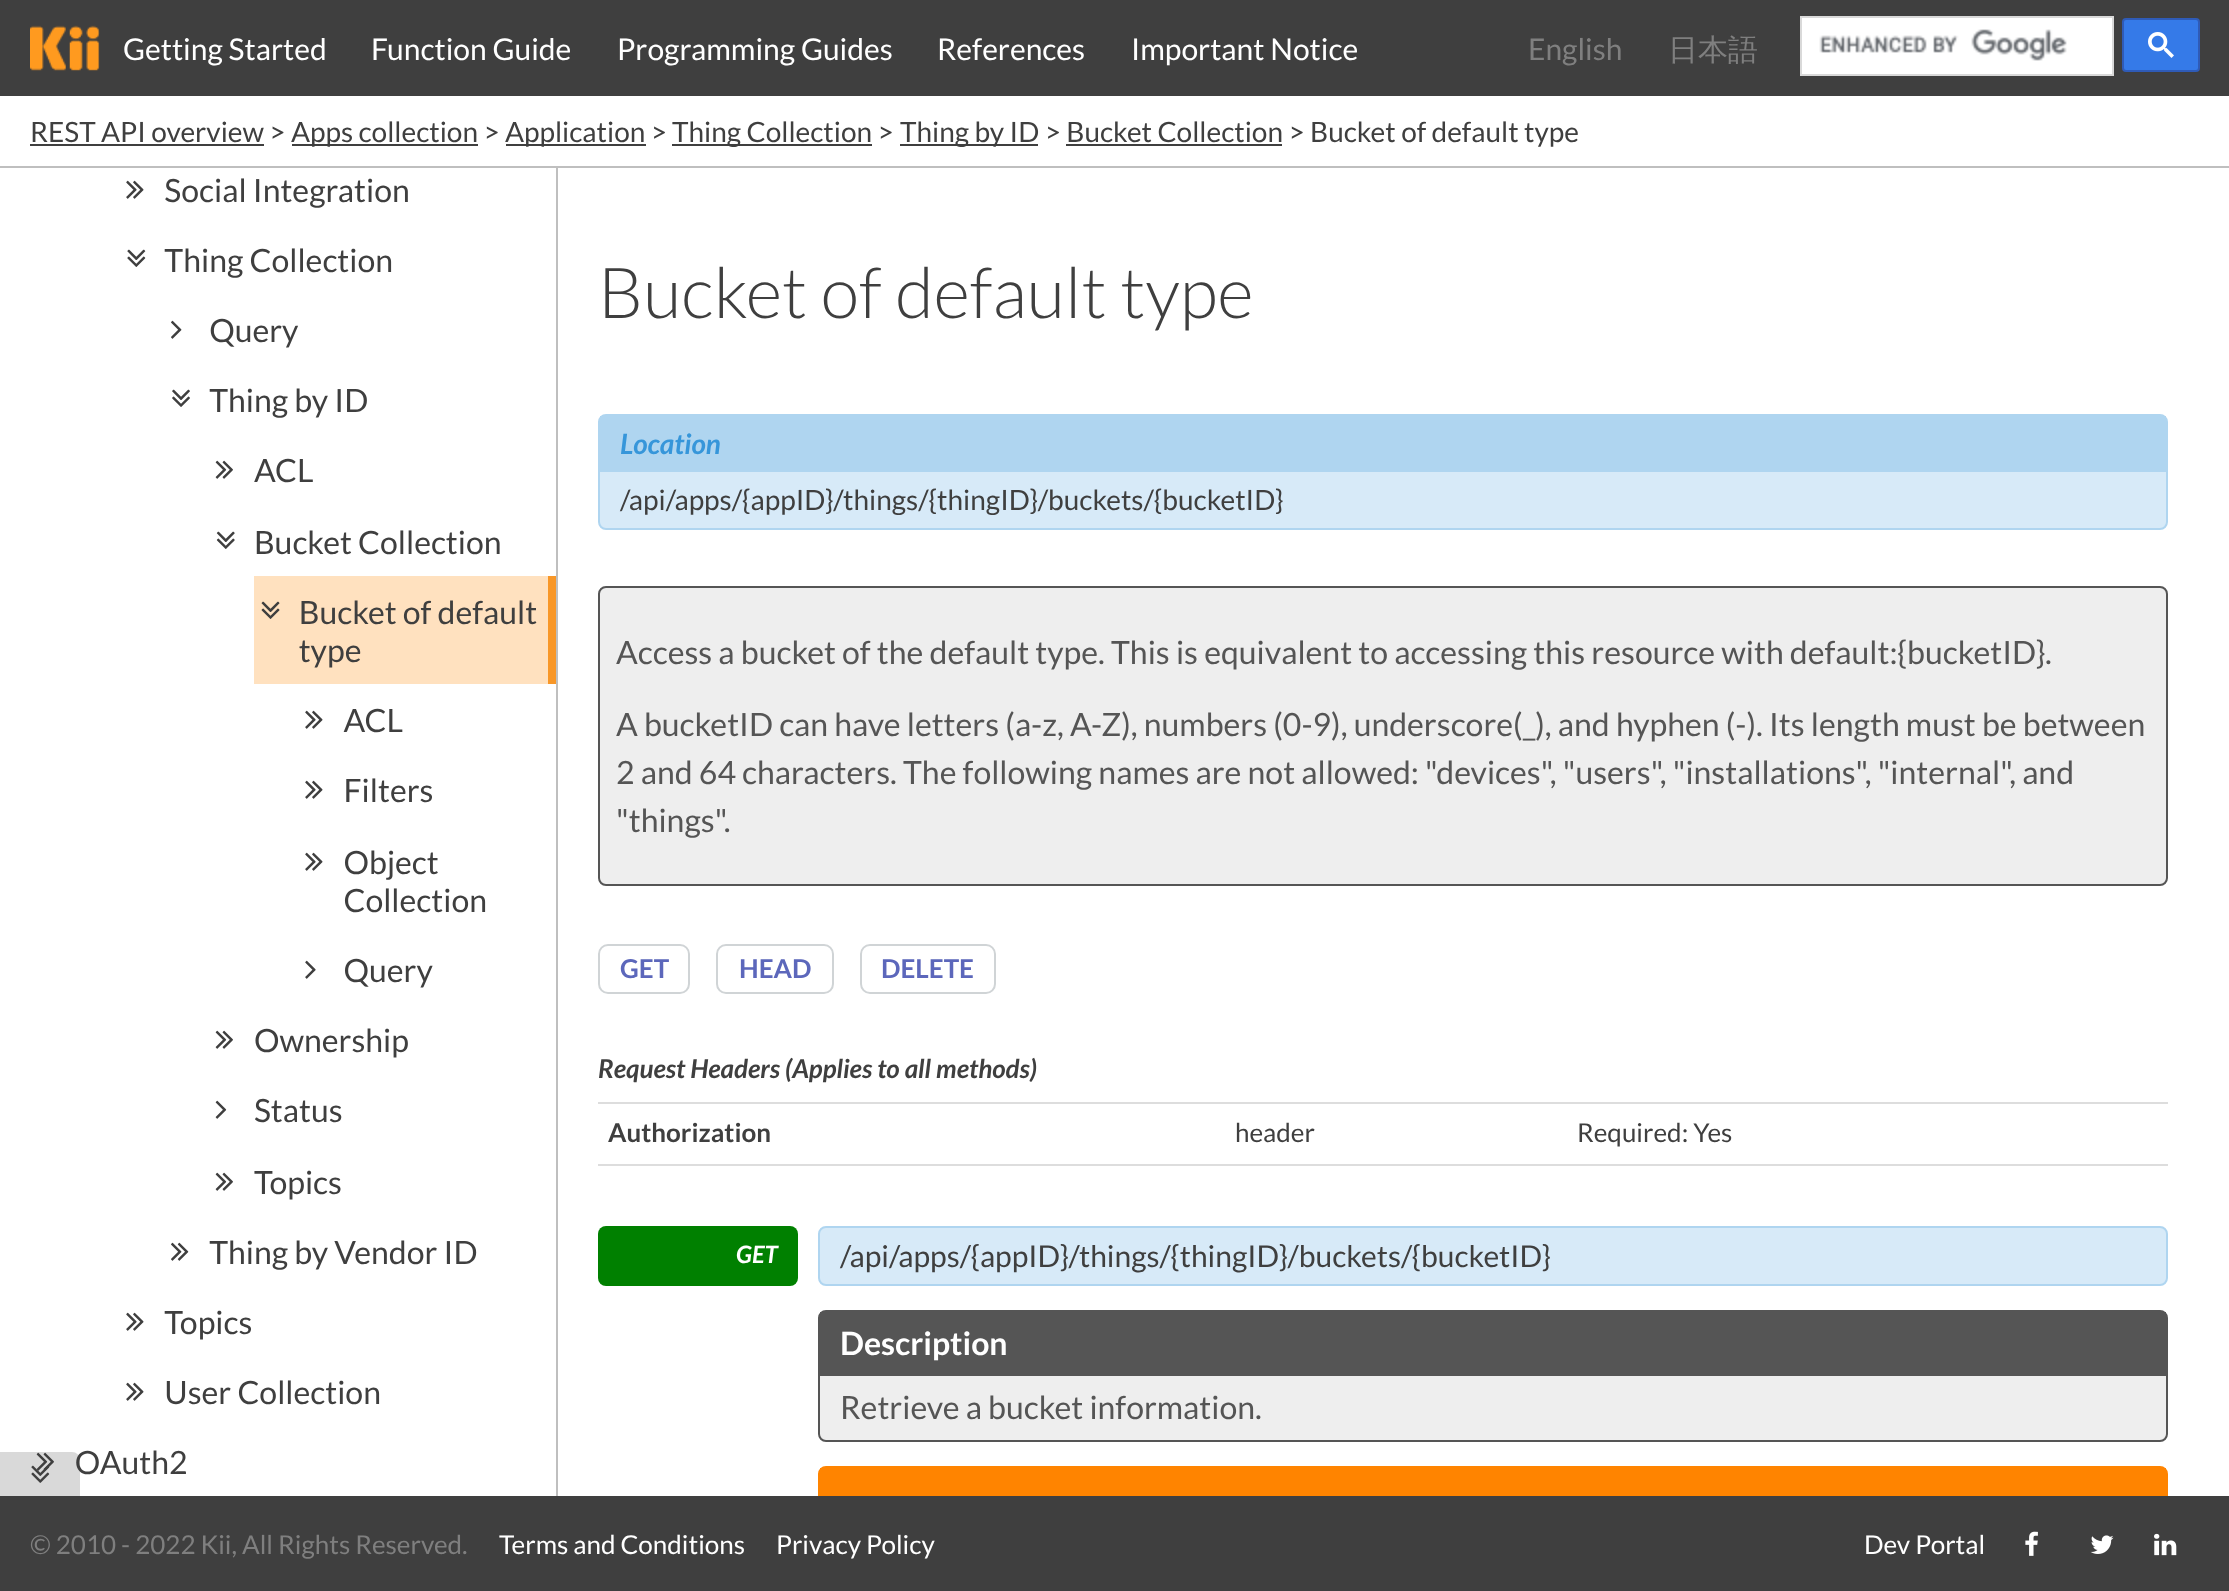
<!DOCTYPE html>
<meta charset="utf-8">
<style>body { margin: 0 } canvas { display: block }</style>
<canvas id="canvas" width="2229" height="1591"></canvas>
<script type="module">
  const canvas = document.getElementById("canvas");
  const ctx = canvas.getContext("2d");
  ctx.miterLimit = 4;
  ctx.fontKerning = "normal";
  async function loadImage(src) {
    const img = new Image();
    img.src = src;
    await img.decode();
    return img;
  }

  ctx.fillStyle = "#ffffff";
  ctx.fillRect(0, 0, 2229, 1591);
  ctx.fillStyle = "#3f3f3f";
  ctx.fillRect(0, 0, 2229, 96);
  ctx.drawImage(await loadImage("img1.png"), 30, 25, 70, 46);
  ctx.font = "30px Lato";
  ctx.fillStyle = "#ffffff";
  ctx.fillText("Getting Started", 123, 60);
  ctx.fillText("Function Guide", 371, 60);
  ctx.fillText("Programming Guides", 617, 60);
  ctx.fillText("References", 937, 60);
  ctx.fillText("Important Notice", 1131, 60);
  ctx.fillStyle = "#7f7f7f";
  ctx.fillText("English", 1528, 60);
  ctx.font = "500 30px WenQuanYi Zen Hei";
  ctx.fillText("日本語", 1668, 60);
  ctx.fillStyle = "#ffffff";
  ctx.beginPath();
  ctx.rect(1801, 17, 312, 58);
  ctx.fill();
  ctx.strokeStyle = "#d9d9d9";
  ctx.lineWidth = 2;
  ctx.stroke();
  ctx.drawImage(await loadImage("img2.png"), 1819, 29, 248, 32);
  ctx.fillStyle = "#357ae8";
  ctx.beginPath();
  ctx.roundRect(2123, 19, 76, 52, 3);
  ctx.fill();
  ctx.strokeStyle = "#2f5bb7";
  ctx.stroke();
  ctx.drawImage(await loadImage("img3.png"), 2148, 32, 26, 26);
  ctx.fillStyle = "#bfbfbf";
  ctx.fillRect(0, 166, 2229, 2);
  ctx.font = "28px Lato";
  ctx.fillStyle = "#3f3f3f";
  ctx.fillText("REST API overview >", 30, 142);
  ctx.fillRect(30, 144, 234, 2);
  ctx.fillRect(292, 144, 186, 2);
  ctx.fillText("Apps collection >", 291, 142);
  ctx.fillRect(506, 144, 140, 2);
  ctx.fillText("Application >", 505, 142);
  ctx.fillRect(672, 144, 200, 2);
  ctx.fillText("Thing Collection >", 672, 142);
  ctx.fillRect(900, 144, 138, 2);
  ctx.fillText("Thing by ID > Bucket Collection > Bucket of default type", 900, 142);
  ctx.fillRect(1066, 144, 216, 2);
  ctx.fillStyle = "#bfbfbf";
  ctx.fillRect(556, 168, 2, 1328);
  ctx.drawImage(await loadImage("img4.png"), 36, 178, 520, 1297);
  ctx.font = "300 70.5px Lato";
  ctx.fillStyle = "#3f3f3f";
  ctx.fillText("Bucket of default type", 598, 318);
  ctx.fillStyle = "#d7eaf8";
  ctx.beginPath();
  ctx.roundRect(599, 415, 1568, 114, 7);
  ctx.fill();
  ctx.strokeStyle = "#afd5f0";
  ctx.stroke();
  ctx.fillStyle = "#afd5f0";
  ctx.fillRect(600, 416, 1566, 56);
  ctx.font = "italic bold 28px Lato";
  ctx.fillStyle = "#3696da";
  ctx.fillText("Location", 620, 454);
  ctx.font = "28px Lato";
  ctx.fillStyle = "#3f3f3f";
  ctx.fillText("/api/apps/{appID}/things/{thingID}/buckets/{bucketID}", 620, 510);
  ctx.fillStyle = "#eeeeee";
  ctx.beginPath();
  ctx.roundRect(599, 587, 1568, 298, 7);
  ctx.fill();
  ctx.strokeStyle = "#555555";
  ctx.stroke();
  ctx.font = "32px Lato";
  ctx.fillStyle = "#555555";
  ctx.fillText("Access a bucket of the default type. This is equivalent to accessing this resource with default:{bucketID}.", 616, 664);
  ctx.fillText("A bucketID can have letters (a-z, A-Z), numbers (0-9), underscore(_), and hyphen (-). Its length must be between", 616, 736);
  ctx.fillText("2 and 64 characters. The following names are not allowed: \"devices\", \"users\", \"installations\", \"internal\", and", 616, 784);
  ctx.fillText("\"things\".", 616, 832);
  ctx.beginPath();
  ctx.roundRect(599, 945, 90, 48, 9);
  ctx.strokeStyle = "#d0d4d6";
  ctx.stroke();
  ctx.font = "bold 26px Lato";
  ctx.fillStyle = "#5c67bb";
  ctx.fillText("GET", 620, 978);
  ctx.beginPath();
  ctx.roundRect(717, 945, 116, 48, 9);
  ctx.stroke();
  ctx.fillText("HEAD", 739, 978);
  ctx.beginPath();
  ctx.roundRect(861, 945, 134, 48, 9);
  ctx.stroke();
  ctx.fillText("DELETE", 881, 978);
  ctx.font = "italic bold 26px Lato";
  ctx.fillStyle = "#3f3f3f";
  ctx.fillText("Request Headers (Applies to all methods)", 598, 1078);
  ctx.fillStyle = "#dddddd";
  ctx.fillRect(598, 1102, 1570, 2);
  ctx.fillRect(598, 1164, 1570, 2);
  ctx.font = "bold 26px Lato";
  ctx.fillStyle = "#3f3f3f";
  ctx.fillText("Authorization", 608, 1142);
  ctx.font = "26px Lato";
  ctx.fillText("header", 1235, 1142);
  ctx.fillText("Required: Yes", 1577, 1142);
  ctx.fillStyle = "#008000";
  ctx.beginPath();
  ctx.roundRect(598, 1226, 200, 60, 8);
  ctx.fill();
  ctx.font = "italic bold 24px Lato";
  ctx.fillStyle = "#ffffff";
  ctx.fillText("GET", 736, 1263);
  ctx.fillStyle = "#d7eaf8";
  ctx.beginPath();
  ctx.roundRect(819, 1227, 1348, 58, 7);
  ctx.fill();
  ctx.strokeStyle = "#afd5f0";
  ctx.stroke();
  ctx.font = "30px Lato";
  ctx.fillStyle = "#3f3f3f";
  ctx.fillText("/api/apps/{appID}/things/{thingID}/buckets/{bucketID}", 840, 1267);
  ctx.fillStyle = "#eeeeee";
  ctx.beginPath();
  ctx.roundRect(819, 1311, 1348, 130, 7);
  ctx.fill();
  ctx.strokeStyle = "#555555";
  ctx.stroke();
  ctx.fillStyle = "#555555";
  ctx.fillRect(820, 1312, 1346, 64);
  ctx.font = "bold 32px Lato";
  ctx.fillStyle = "#ffffff";
  ctx.fillText("Description", 840, 1355);
  ctx.font = "32px Lato";
  ctx.fillStyle = "#555555";
  ctx.fillText("Retrieve a bucket information.", 840, 1419);
  ctx.beginPath();
  ctx.roundRect(819, 1467, 1348, 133, 7);
  ctx.strokeStyle = "#ff8400";
  ctx.stroke();
  ctx.fillStyle = "#ff8400";
  ctx.fillRect(820, 1468, 1346, 28);
  ctx.fillStyle = "rgba(63, 63, 63, 0.2)";
  ctx.beginPath();
  ctx.roundRect(0, 1452, 80, 44, [0, 8, 0, 0]);
  ctx.fill();
  ctx.drawImage(await loadImage("img5.png"), 31, 1465, 19, 18);
  ctx.fillStyle = "#3f3f3f";
  ctx.fillRect(0, 1496, 2229, 95);
  ctx.font = "26px Lato";
  ctx.fillStyle = "#7f7f7f";
  ctx.fillText("© 2010 - 2022 Kii, All Rights Reserved.", 30, 1554);
  ctx.fillStyle = "#ffffff";
  ctx.fillText("Terms and Conditions", 499, 1554);
  ctx.fillText("Privacy Policy", 776, 1554);
  ctx.fillText("Dev Portal", 1864, 1554);
  ctx.drawImage(await loadImage("img6.png"), 2025, 1531, 13, 25);
  ctx.drawImage(await loadImage("img7.png"), 2090, 1535, 24, 19);
  ctx.drawImage(await loadImage("img8.png"), 2154, 1533, 23, 23);
</script>
